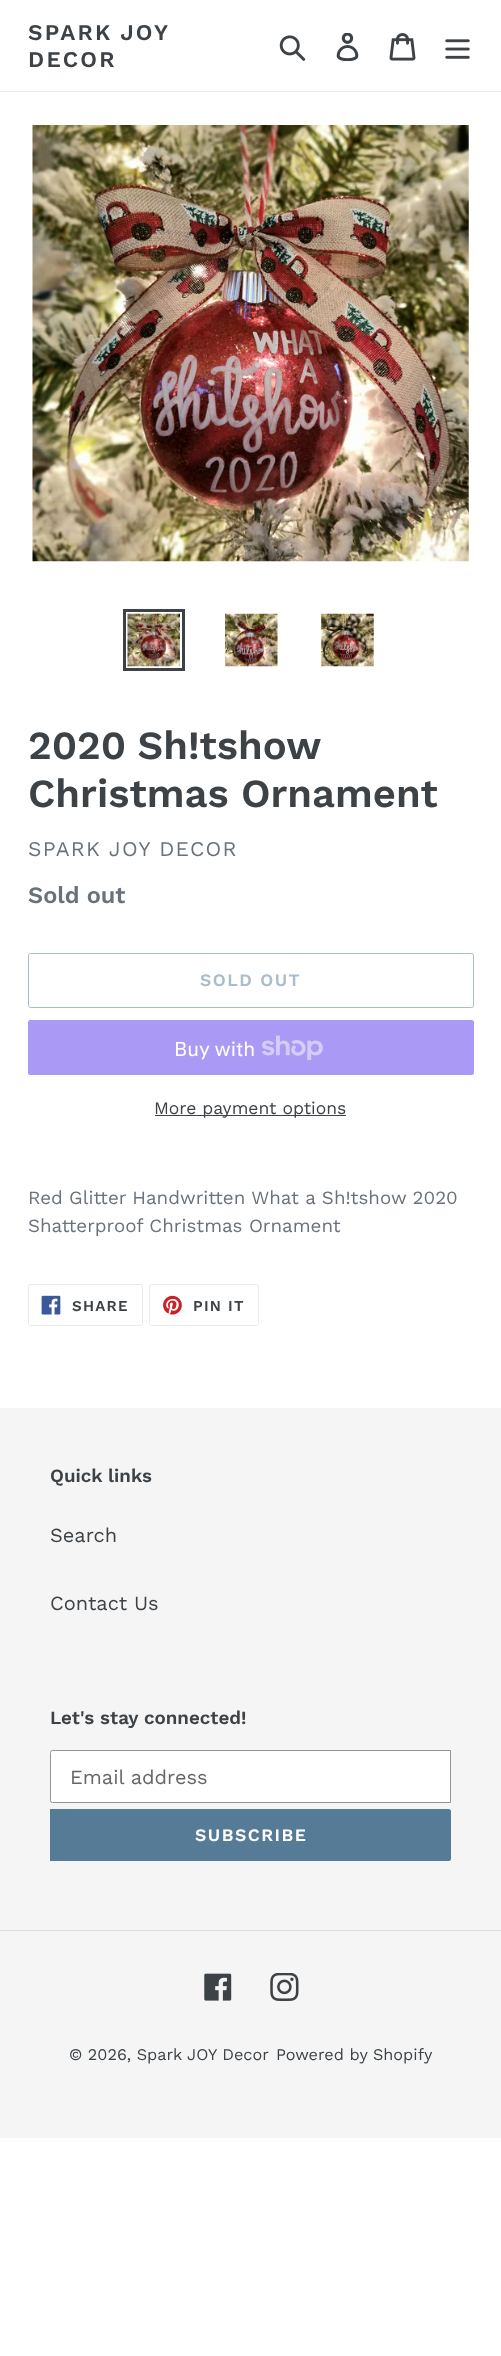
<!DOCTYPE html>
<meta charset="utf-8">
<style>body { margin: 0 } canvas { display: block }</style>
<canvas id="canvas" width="501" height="2356"></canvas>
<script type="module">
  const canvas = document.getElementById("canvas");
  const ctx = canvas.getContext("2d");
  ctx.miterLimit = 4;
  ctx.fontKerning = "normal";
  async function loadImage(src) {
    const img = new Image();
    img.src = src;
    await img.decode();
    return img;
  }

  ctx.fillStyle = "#ffffff";
  ctx.fillRect(0, 0, 501, 2356);
  ctx.fillStyle = "#e8e9eb";
  ctx.fillRect(0, 91, 501, 1);
  ctx.letterSpacing = "2.25px";
  ctx.wordSpacing = "-1px";
  ctx.font = "600 22.5px Work Sans";
  ctx.fillStyle = "#3d4246";
  ctx.fillText("SPARK JOY", 28, 40);
  ctx.wordSpacing = "0px";
  ctx.fillText("DECOR", 28, 67);
  ctx.drawImage(await loadImage("img1.png"), 279, 35, 27, 26);
  ctx.drawImage(await loadImage("img2.png"), 336, 33, 23, 28);
  ctx.drawImage(await loadImage("img3.png"), 389, 33, 27, 28);
  ctx.drawImage(await loadImage("img4.png"), 445, 39, 25, 20);
  ctx.drawImage(await loadImage("img5.png"), 32, 125, 437, 437);
  ctx.strokeStyle = "#3d4246";
  ctx.lineWidth = 3;
  ctx.strokeRect(124.5, 610.5, 59, 59);
  ctx.drawImage(await loadImage("img6.png"), 127, 613, 53, 54);
  ctx.drawImage(await loadImage("img7.png"), 225, 613, 53, 54);
  ctx.drawImage(await loadImage("img8.png"), 321, 613, 53, 54);
  ctx.letterSpacing = "0px";
  ctx.wordSpacing = "-1px";
  ctx.font = "600 40px Work Sans";
  ctx.fillText("2020 Sh!tshow", 28, 759);
  ctx.wordSpacing = "0px";
  ctx.fillText("Christmas Ornament", 28, 807);
  ctx.letterSpacing = "1.25px";
  ctx.font = "21px Work Sans";
  ctx.fillStyle = "#69727b";
  ctx.fillText("SPARK JOY DECOR", 28, 856);
  ctx.letterSpacing = "0px";
  ctx.font = "600 23.5px Work Sans";
  ctx.fillText("Sold out", 28, 903);
  ctx.beginPath();
  ctx.roundRect(28.5, 953.5, 445, 54, 2);
  ctx.strokeStyle = "#aabdcb";
  ctx.lineWidth = 1;
  ctx.stroke();
  ctx.letterSpacing = "1.5px";
  ctx.font = "600 17.5px Work Sans";
  ctx.fillStyle = "#aabdcb";
  ctx.fillText("SOLD OUT", 200, 986);
  ctx.fillStyle = "#aa99f5";
  ctx.beginPath();
  ctx.roundRect(28, 1020, 446, 55, 2.5);
  ctx.fill();
  ctx.letterSpacing = "0px";
  ctx.font = "20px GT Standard";
  ctx.fillStyle = "#ffffff";
  ctx.fillText("Buy with", 174, 1056);
  ctx.drawImage(await loadImage("img9.png"), 262, 1035, 61, 25);
  ctx.fillStyle = "#3d4246";
  ctx.fillRect(155, 1115, 191, 1);
  ctx.font = "17.5px Work Sans";
  ctx.fillText("More payment options", 154, 1114);
  ctx.font = "18.75px Work Sans";
  ctx.fillStyle = "#69727b";
  ctx.fillText("Red Glitter Handwritten What a Sh!tshow 2020", 28, 1204);
  ctx.fillText("Shatterproof Christmas Ornament", 28, 1232);
  ctx.beginPath();
  ctx.roundRect(28.5, 1284.5, 114, 41, 2);
  ctx.strokeStyle = "#e8e9eb";
  ctx.stroke();
  ctx.drawImage(await loadImage("img10.png"), 41, 1295, 20, 20);
  ctx.letterSpacing = "1.25px";
  ctx.font = "600 15px Work Sans";
  ctx.fillStyle = "#3d4246";
  ctx.fillText("SHARE", 72, 1311);
  ctx.beginPath();
  ctx.roundRect(149.5, 1284.5, 109, 41, 2);
  ctx.stroke();
  ctx.drawImage(await loadImage("img11.png"), 163, 1295, 19, 20);
  ctx.fillText("PIN IT", 193, 1311);
  ctx.fillStyle = "#f5f5f5";
  ctx.fillRect(0, 1408, 501, 730);
  ctx.letterSpacing = "0px";
  ctx.font = "600 18.75px Work Sans";
  ctx.fillStyle = "#3d4246";
  ctx.fillText("Quick links", 50, 1482);
  ctx.font = "20px Work Sans";
  ctx.fillText("Search", 50, 1542);
  ctx.fillText("Contact Us", 50, 1610);
  ctx.font = "600 18.75px Work Sans";
  ctx.fillText("Let's stay connected!", 50, 1724);
  ctx.fillStyle = "#ffffff";
  ctx.beginPath();
  ctx.roundRect(50.5, 1750.5, 400, 52, [2, 0, 0, 2]);
  ctx.fill();
  ctx.strokeStyle = "#949494";
  ctx.stroke();
  ctx.font = "20px Work Sans";
  ctx.fillStyle = "#666666";
  ctx.fillText("Email address", 70, 1784);
  ctx.fillStyle = "#557b97";
  ctx.beginPath();
  ctx.roundRect(50, 1809, 401, 52, [0, 2.5, 2.5, 0]);
  ctx.fill();
  ctx.letterSpacing = "1.5px";
  ctx.font = "600 17.5px Work Sans";
  ctx.fillStyle = "#ffffff";
  ctx.fillText("SUBSCRIBE", 195, 1841);
  ctx.fillStyle = "#dcdcdc";
  ctx.fillRect(0, 1930, 501, 1);
  ctx.drawImage(await loadImage("img12.png"), 204, 1973, 28, 28);
  ctx.drawImage(await loadImage("img13.png"), 270, 1973, 29, 28);
  ctx.letterSpacing = "0px";
  ctx.font = "16.25px Work Sans";
  ctx.fillStyle = "#3d4246";
  ctx.fillText("© 2026, Spark JOY Decor", 69, 2060);
  ctx.fillText("Powered by Shopify", 276, 2060);
</script>
